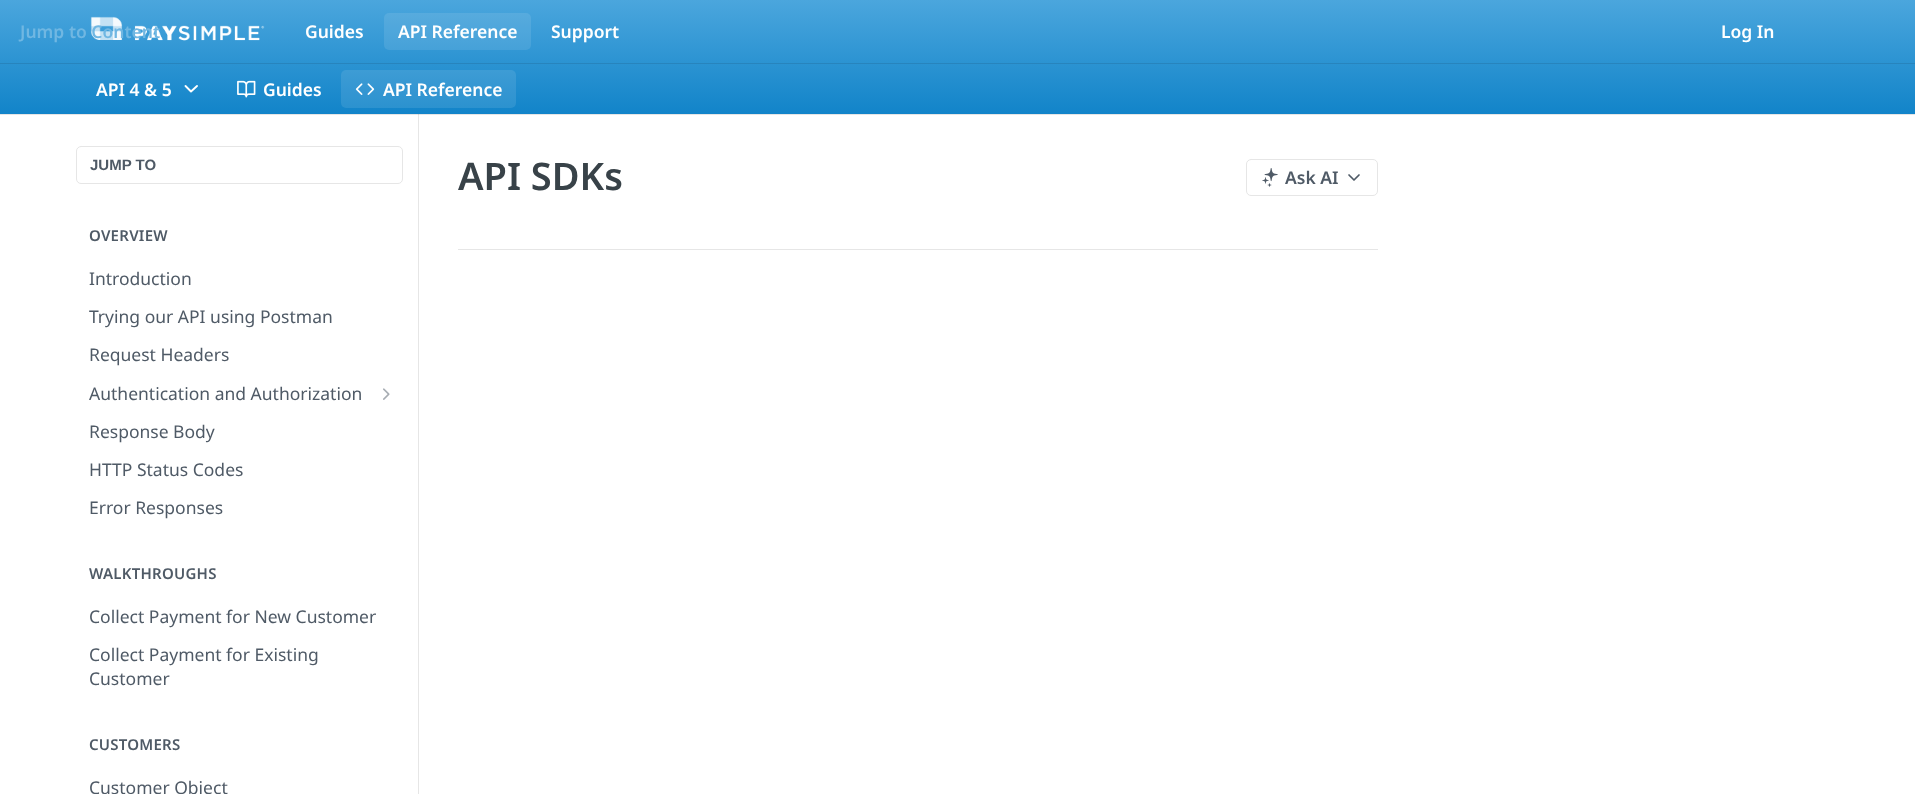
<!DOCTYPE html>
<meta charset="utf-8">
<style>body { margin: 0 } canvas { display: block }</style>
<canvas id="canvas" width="1915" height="794"></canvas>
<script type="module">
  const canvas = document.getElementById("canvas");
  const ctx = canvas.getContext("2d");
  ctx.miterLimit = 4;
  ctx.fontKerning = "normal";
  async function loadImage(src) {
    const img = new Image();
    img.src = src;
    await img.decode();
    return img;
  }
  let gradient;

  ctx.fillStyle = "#ffffff";
  ctx.fillRect(0, 0, 1915, 794);
  ctx.fillStyle = "#e6e6e6";
  ctx.beginPath();
  ctx.moveTo(59, 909);
  ctx.lineTo(419, 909);
  ctx.lineTo(419, 114);
  ctx.lineTo(418, 114);
  ctx.lineTo(418, 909);
  ctx.closePath();
  ctx.fill();
  ctx.fillStyle = "rgba(0, 0, 0, 0.1)";
  ctx.fillRect(0, 114, 1915, 1);
  gradient = ctx.createLinearGradient(958, 0, 958, 114);
  gradient.addColorStop(0, "#4ba6dd");
  gradient.addColorStop(1, "#1284c9");
  ctx.fillStyle = gradient;
  ctx.fillRect(0, 0, 1915, 114);
  ctx.fillStyle = "#2784bd";
  ctx.fillRect(0, 63, 1915, 1);
  ctx.drawImage(await loadImage("img1.png"), 90, 16, 175, 25);
  ctx.font = "600 17.5px Noto Sans";
  ctx.fillStyle = "#70b7e2";
  ctx.fillText("Jump to Content", 20, 38);
  ctx.fillStyle = "#ffffff";
  ctx.fillText("Guides", 305, 38);
  ctx.fillStyle = "rgba(255, 255, 255, 0.1)";
  ctx.beginPath();
  ctx.roundRect(384, 13, 147, 37, 5);
  ctx.fill();
  ctx.fillStyle = "#ffffff";
  ctx.fillText("API Reference", 398, 38);
  ctx.fillText("Support", 551, 38);
  ctx.fillText("Log In", 1721, 38);
  ctx.fillText("API 4 & 5", 96, 96);
  ctx.beginPath();
  ctx.moveTo(185.5, 86);
  ctx.lineTo(191, 91.5);
  ctx.lineTo(197, 86);
  ctx.strokeStyle = "#ffffff";
  ctx.lineWidth = 1.9;
  ctx.lineCap = "round";
  ctx.lineJoin = "round";
  ctx.stroke();
  ctx.drawImage(await loadImage("img2.png"), 237, 80, 19, 18);
  ctx.fillText("Guides", 263, 96);
  ctx.fillStyle = "rgba(255, 255, 255, 0.1)";
  ctx.beginPath();
  ctx.roundRect(341, 70, 175, 38, 5);
  ctx.fill();
  ctx.drawImage(await loadImage("img3.png"), 355, 83, 20, 12);
  ctx.fillStyle = "#ffffff";
  ctx.fillText("API Reference", 383, 96);
  ctx.beginPath();
  ctx.roundRect(76.5, 146.5, 326, 37, 4.5);
  ctx.strokeStyle = "#e6e6e6";
  ctx.lineWidth = 1;
  ctx.lineJoin = "miter";
  ctx.stroke();
  ctx.font = "bold 15px Liberation Sans";
  ctx.fillStyle = "#4f5a66";
  ctx.fillText("JUMP TO", 90, 170);
  ctx.letterSpacing = "0.25px";
  ctx.font = "600 15px Noto Sans";
  ctx.fillText("OVERVIEW", 89, 241);
  ctx.letterSpacing = "0px";
  ctx.font = "17.5px Noto Sans";
  ctx.fillText("Introduction", 89, 285);
  ctx.fillText("Trying our API using Postman", 89, 323);
  ctx.fillText("Request Headers", 89, 361);
  ctx.fillText("Authentication and Authorization", 89, 400);
  ctx.drawImage(await loadImage("img4.png"), 383, 388, 7, 12);
  ctx.fillText("Response Body", 89, 438);
  ctx.fillText("HTTP Status Codes", 89, 476);
  ctx.fillText("Error Responses", 89, 514);
  ctx.letterSpacing = "0.25px";
  ctx.font = "600 15px Noto Sans";
  ctx.fillText("WALKTHROUGHS", 89, 579);
  ctx.letterSpacing = "0px";
  ctx.font = "17.5px Noto Sans";
  ctx.fillText("Collect Payment for New Customer", 89, 623);
  ctx.fillText("Collect Payment for Existing", 89, 661);
  ctx.fillText("Customer", 89, 685);
  ctx.letterSpacing = "0.25px";
  ctx.font = "600 15px Noto Sans";
  ctx.fillText("CUSTOMERS", 89, 750);
  ctx.letterSpacing = "0px";
  ctx.font = "17.5px Noto Sans";
  ctx.fillText("Customer Object", 89, 794);
  ctx.fillStyle = "#e6e6e6";
  ctx.fillRect(458, 249, 920, 1);
  ctx.font = "600 38px Noto Sans";
  ctx.fillStyle = "#384248";
  ctx.fillText("API SDKs", 458, 190);
  ctx.beginPath();
  ctx.roundRect(1246.5, 159.5, 131, 36, 4.5);
  ctx.stroke();
  ctx.drawImage(await loadImage("img5.png"), 1262, 168, 16, 19);
  ctx.font = "600 17.5px Noto Sans";
  ctx.fillStyle = "#4f5a66";
  ctx.fillText("Ask AI", 1285, 184);
  ctx.beginPath();
  ctx.moveTo(1349, 175);
  ctx.lineTo(1354, 180);
  ctx.lineTo(1359, 175);
  ctx.strokeStyle = "#4f5a66";
  ctx.lineWidth = 1.7;
  ctx.lineJoin = "round";
  ctx.stroke();
</script>
